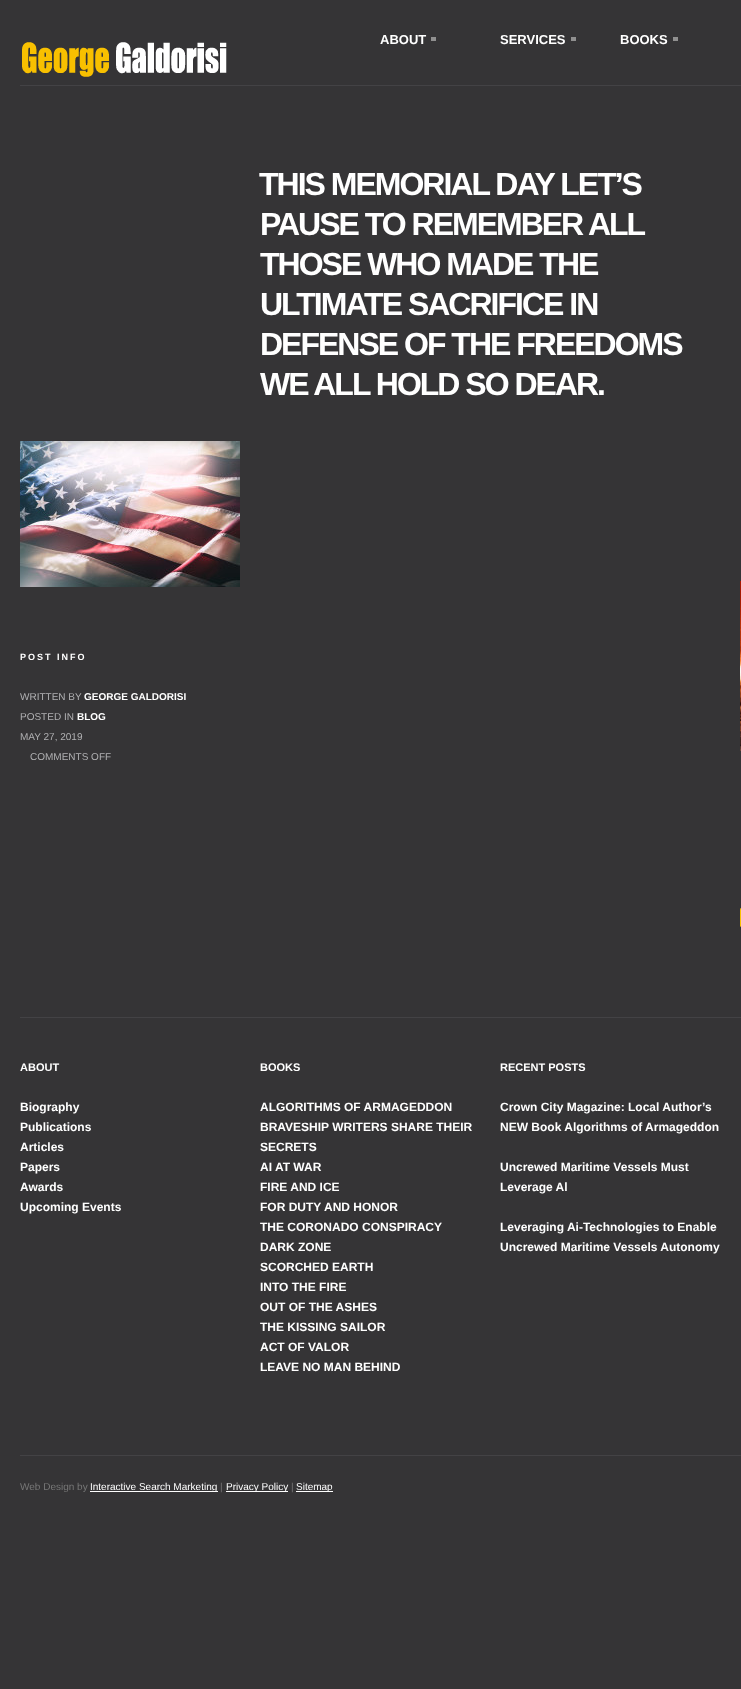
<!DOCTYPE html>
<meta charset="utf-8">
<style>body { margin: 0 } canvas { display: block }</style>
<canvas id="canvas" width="741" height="1689"></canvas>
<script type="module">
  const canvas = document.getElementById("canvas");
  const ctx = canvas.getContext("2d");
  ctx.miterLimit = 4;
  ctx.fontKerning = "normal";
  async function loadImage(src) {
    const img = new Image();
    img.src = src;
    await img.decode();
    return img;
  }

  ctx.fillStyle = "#353436";
  ctx.fillRect(0, 0, 741, 1689);
  ctx.fillStyle = "#434245";
  ctx.fillRect(20, 85, 721, 1);
  ctx.font = "bold 13px Liberation Sans";
  ctx.fillStyle = "#ffffff";
  ctx.fillText("ABOUT", 380, 44);
  ctx.fillStyle = "#909090";
  ctx.fillRect(431, 37, 5, 4);
  ctx.fillStyle = "#ffffff";
  ctx.fillText("SERVICES", 500, 44);
  ctx.fillStyle = "#909090";
  ctx.fillRect(571, 37, 5, 4);
  ctx.fillStyle = "#ffffff";
  ctx.fillText("BOOKS", 620, 44);
  ctx.fillStyle = "#909090";
  ctx.fillRect(673, 37, 5, 4);
  ctx.drawImage(await loadImage("img1.png"), 22, 42, 205, 35);
  ctx.letterSpacing = "-2px";
  ctx.font = "bold 32px Liberation Sans";
  ctx.fillStyle = "#ffffff";
  ctx.fillText("THIS MEMORIAL DAY LET’S", 259, 195);
  ctx.fillText("PAUSE TO REMEMBER ALL", 260, 235);
  ctx.fillText("THOSE WHO MADE THE", 260, 275);
  ctx.fillText("ULTIMATE SACRIFICE IN", 260, 315);
  ctx.fillText("DEFENSE OF THE FREEDOMS", 260, 355);
  ctx.fillText("WE ALL HOLD SO DEAR.", 260, 395);
  ctx.drawImage(await loadImage("img2.png"), 20, 441, 220, 146);
  ctx.letterSpacing = "2px";
  ctx.font = "bold 9px Liberation Sans";
  ctx.fillText("POST INFO", 20, 660);
  ctx.letterSpacing = "0px";
  ctx.font = "10px Liberation Sans";
  ctx.fillStyle = "#b1b1b3";
  ctx.fillText("WRITTEN BY", 20, 700);
  ctx.font = "bold 10px Liberation Sans";
  ctx.fillStyle = "#ffffff";
  ctx.fillText("GEORGE GALDORISI", 84, 700);
  ctx.font = "10px Liberation Sans";
  ctx.fillStyle = "#b1b1b3";
  ctx.fillText("POSTED IN", 20, 720);
  ctx.font = "bold 10px Liberation Sans";
  ctx.fillStyle = "#ffffff";
  ctx.fillText("BLOG", 77, 720);
  ctx.font = "10px Liberation Sans";
  ctx.fillStyle = "#b1b1b3";
  ctx.fillText("MAY 27, 2019", 20, 740);
  ctx.fillText("COMMENTS OFF", 30, 760);
  ctx.drawImage(await loadImage("img3.png"), 740, 581, 1, 170);
  ctx.fillStyle = "#f8c100";
  ctx.beginPath();
  ctx.roundRect(740, 908, 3, 19, 2);
  ctx.fill();
  ctx.fillStyle = "#434245";
  ctx.fillRect(20, 1017, 721, 1);
  ctx.font = "bold 11px Liberation Sans";
  ctx.fillStyle = "#ffffff";
  ctx.fillText("ABOUT", 20, 1071);
  ctx.font = "bold 12px Liberation Sans";
  ctx.fillText("Biography", 20, 1111);
  ctx.fillText("Publications", 20, 1131);
  ctx.fillText("Articles", 20, 1151);
  ctx.fillText("Papers", 20, 1171);
  ctx.fillText("Awards", 20, 1191);
  ctx.fillText("Upcoming Events", 20, 1211);
  ctx.font = "bold 11px Liberation Sans";
  ctx.fillText("BOOKS", 260, 1071);
  ctx.font = "bold 12px Liberation Sans";
  ctx.fillText("ALGORITHMS OF ARMAGEDDON", 260, 1111);
  ctx.fillText("BRAVESHIP WRITERS SHARE THEIR", 260, 1131);
  ctx.fillText("SECRETS", 260, 1151);
  ctx.fillText("AI AT WAR", 260, 1171);
  ctx.fillText("FIRE AND ICE", 260, 1191);
  ctx.fillText("FOR DUTY AND HONOR", 260, 1211);
  ctx.fillText("THE CORONADO CONSPIRACY", 260, 1231);
  ctx.fillText("DARK ZONE", 260, 1251);
  ctx.fillText("SCORCHED EARTH", 260, 1271);
  ctx.fillText("INTO THE FIRE", 260, 1291);
  ctx.fillText("OUT OF THE ASHES", 260, 1311);
  ctx.fillText("THE KISSING SAILOR", 260, 1331);
  ctx.fillText("ACT OF VALOR", 260, 1351);
  ctx.fillText("LEAVE NO MAN BEHIND", 260, 1371);
  ctx.font = "bold 11px Liberation Sans";
  ctx.fillText("RECENT POSTS", 500, 1071);
  ctx.font = "bold 12px Liberation Sans";
  ctx.fillText("Crown City Magazine: Local Author’s", 500, 1111);
  ctx.fillText("NEW Book Algorithms of Armageddon", 500, 1131);
  ctx.fillText("Uncrewed Maritime Vessels Must", 500, 1171);
  ctx.fillText("Leverage Al", 500, 1191);
  ctx.fillText("Leveraging Ai-Technologies to Enable", 500, 1231);
  ctx.fillText("Uncrewed Maritime Vessels Autonomy", 500, 1251);
  ctx.fillStyle = "#434245";
  ctx.fillRect(20, 1455, 721, 1);
  ctx.font = "10px Liberation Sans";
  ctx.fillStyle = "#777777";
  ctx.fillText("Web Design by", 20, 1490);
  ctx.fillStyle = "#ffffff";
  ctx.fillRect(90, 1491, 128, 1);
  ctx.fillText("Interactive Search Marketing", 90, 1490);
  ctx.fillStyle = "#777777";
  ctx.fillText("|", 220, 1490);
  ctx.fillStyle = "#ffffff";
  ctx.fillRect(226, 1491, 62, 1);
  ctx.fillText("Privacy Policy", 226, 1490);
  ctx.fillStyle = "#777777";
  ctx.fillText("|", 291, 1490);
  ctx.fillStyle = "#ffffff";
  ctx.fillRect(296, 1491, 37, 1);
  ctx.fillText("Sitemap", 296, 1490);
</script>
